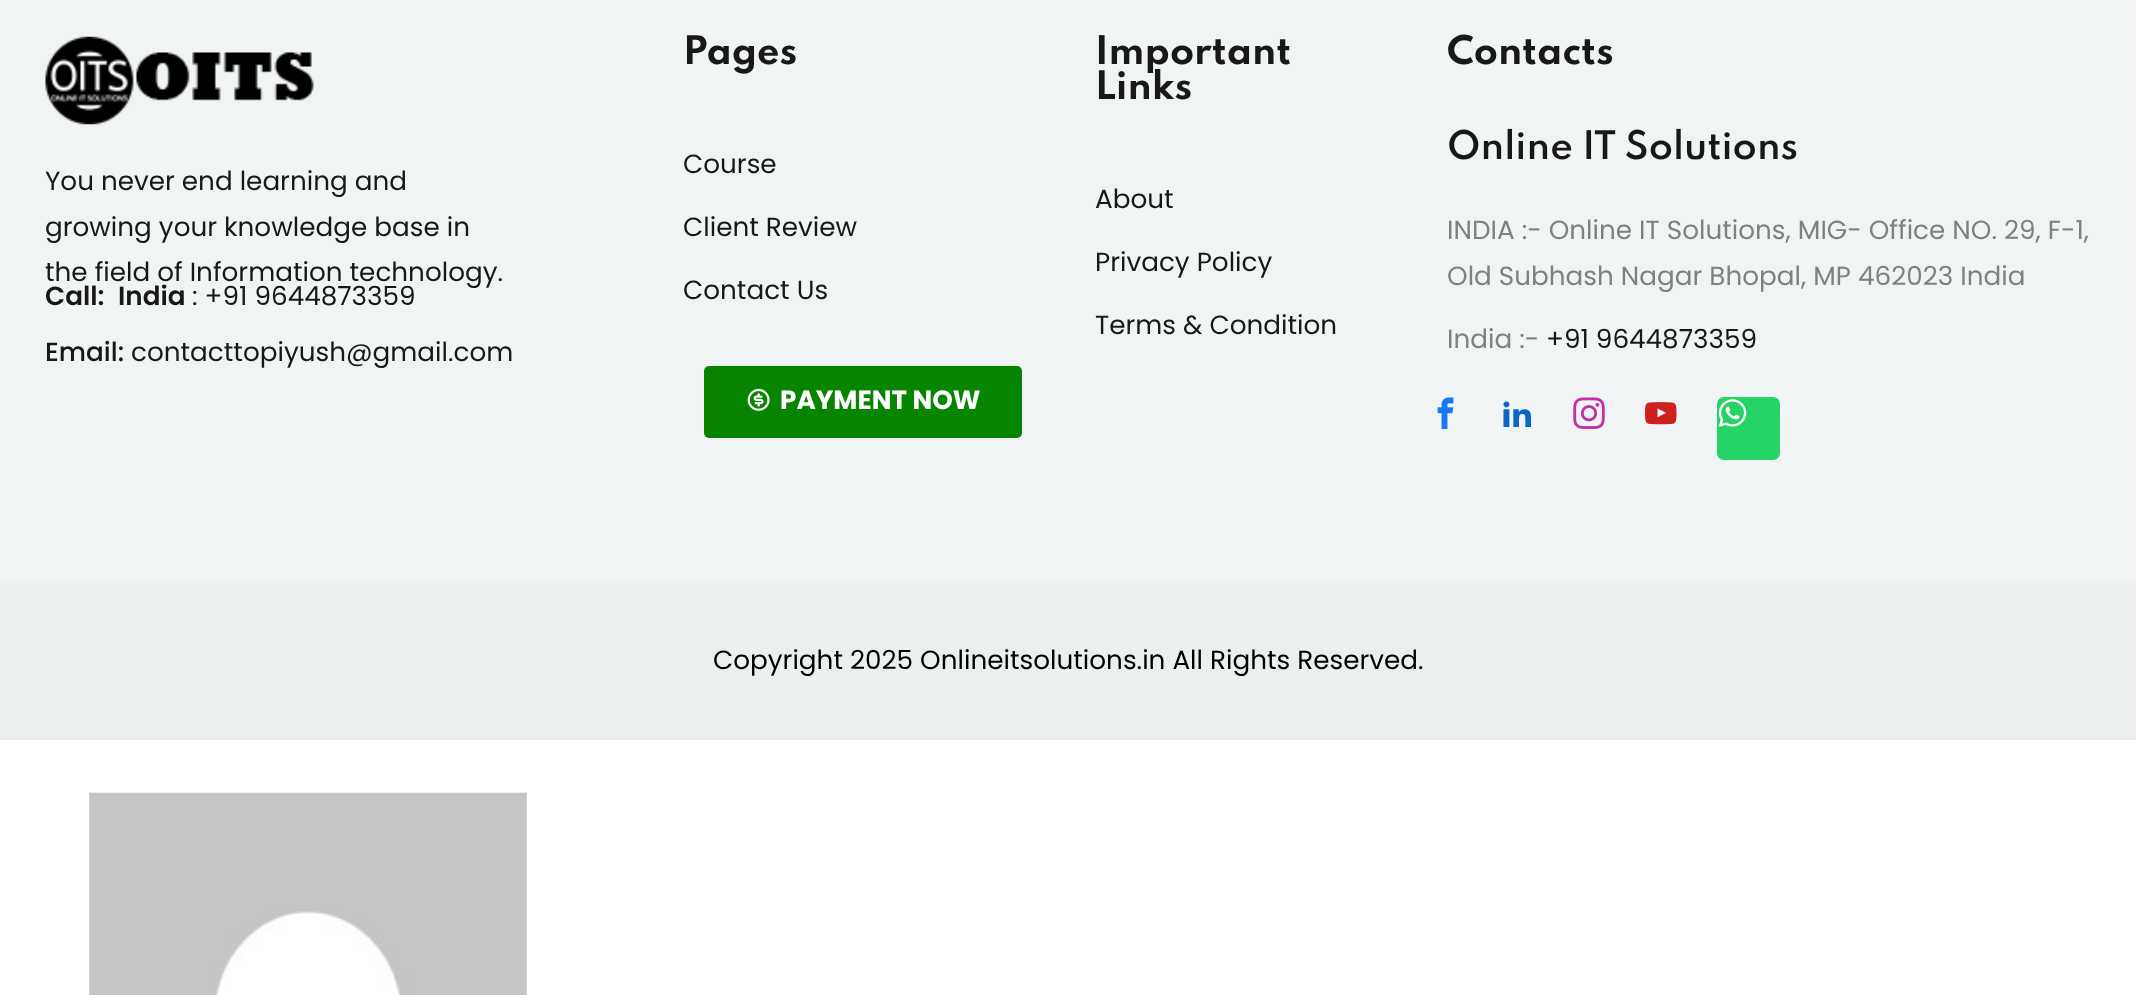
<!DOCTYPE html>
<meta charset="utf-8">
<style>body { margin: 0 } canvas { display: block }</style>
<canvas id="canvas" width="2136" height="995"></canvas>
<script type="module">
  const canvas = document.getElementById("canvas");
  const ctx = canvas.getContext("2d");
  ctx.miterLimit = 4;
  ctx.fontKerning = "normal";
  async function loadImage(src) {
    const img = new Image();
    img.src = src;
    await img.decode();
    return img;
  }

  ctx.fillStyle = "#ffffff";
  ctx.fillRect(0, 0, 2136, 995);
  ctx.fillStyle = "#f0f4f5";
  ctx.fillRect(0, 0, 2136, 583);
  ctx.drawImage(await loadImage("img1.png"), 45, 36, 269, 89);
  ctx.font = "26.25px Poppins";
  ctx.fillStyle = "#181818";
  ctx.fillText("You never end learning and", 45, 190);
  ctx.fillText("growing your knowledge base in", 45, 236);
  ctx.fillText("the field of Information technology.", 45, 281);
  ctx.font = "600 26.25px Poppins";
  ctx.fillText("Call:", 45, 305);
  ctx.fillText("India", 118, 305);
  ctx.font = "26.25px Poppins";
  ctx.fillText(": +91 9644873359", 192, 305);
  ctx.font = "500 26.25px Poppins";
  ctx.fillText("Email:", 45, 361);
  ctx.font = "26.25px Poppins";
  ctx.fillText("contacttopiyush@gmail.com", 131, 361);
  ctx.font = "bold 35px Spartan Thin";
  ctx.fillText("Pages", 683, 64);
  ctx.font = "26.25px Poppins";
  ctx.fillText("Course", 683, 173);
  ctx.fillText("Client Review", 683, 236);
  ctx.fillText("Contact Us", 683, 299);
  ctx.fillStyle = "#088500";
  ctx.beginPath();
  ctx.roundRect(704, 366, 318, 72, 5);
  ctx.fill();
  ctx.drawImage(await loadImage("img2.png"), 747, 388, 23, 23);
  ctx.font = "bold 26.25px Poppins";
  ctx.fillStyle = "#ffffff";
  ctx.fillText("PAYMENT NOW", 780, 409);
  ctx.font = "bold 35px Spartan Thin";
  ctx.fillStyle = "#181818";
  ctx.fillText("Important", 1095, 64);
  ctx.fillText("Links", 1095, 99);
  ctx.font = "26.25px Poppins";
  ctx.fillText("About", 1095, 208);
  ctx.fillText("Privacy Policy", 1095, 271);
  ctx.fillText("Terms & Condition", 1095, 334);
  ctx.font = "bold 35px Spartan Thin";
  ctx.fillText("Contacts", 1447, 64);
  ctx.font = "600 35px Spartan Thin";
  ctx.fillText("Online IT Solutions", 1447, 159);
  ctx.font = "26.25px Poppins";
  ctx.fillStyle = "#808080";
  ctx.fillText("INDIA :- Online IT Solutions, MIG- Office NO. 29, F-1,", 1447, 239);
  ctx.fillText("Old Subhash Nagar Bhopal, MP 462023 India", 1447, 285);
  ctx.fillText("India :-", 1447, 348);
  ctx.fillStyle = "#181818";
  ctx.fillText("+91 9644873359", 1546, 348);
  ctx.drawImage(await loadImage("img3.png"), 1437, 397, 17, 32);
  ctx.drawImage(await loadImage("img4.png"), 1503, 401, 29, 26);
  ctx.drawImage(await loadImage("img5.png"), 1573, 397, 32, 32);
  ctx.drawImage(await loadImage("img6.png"), 1645, 402, 32, 23);
  ctx.fillStyle = "#25d366";
  ctx.beginPath();
  ctx.roundRect(1717, 397, 63, 63, 7);
  ctx.fill();
  ctx.drawImage(await loadImage("img7.png"), 1718, 399, 29, 28);
  ctx.fillStyle = "#ebeff0";
  ctx.fillRect(0, 583, 2136, 157);
  ctx.fillStyle = "#000000";
  ctx.fillText("Copyright 2025 Onlineitsolutions.in All Rights Reserved.", 713, 669);
  ctx.drawImage(await loadImage("img8.png"), 89, 792, 438, 203);
</script>
